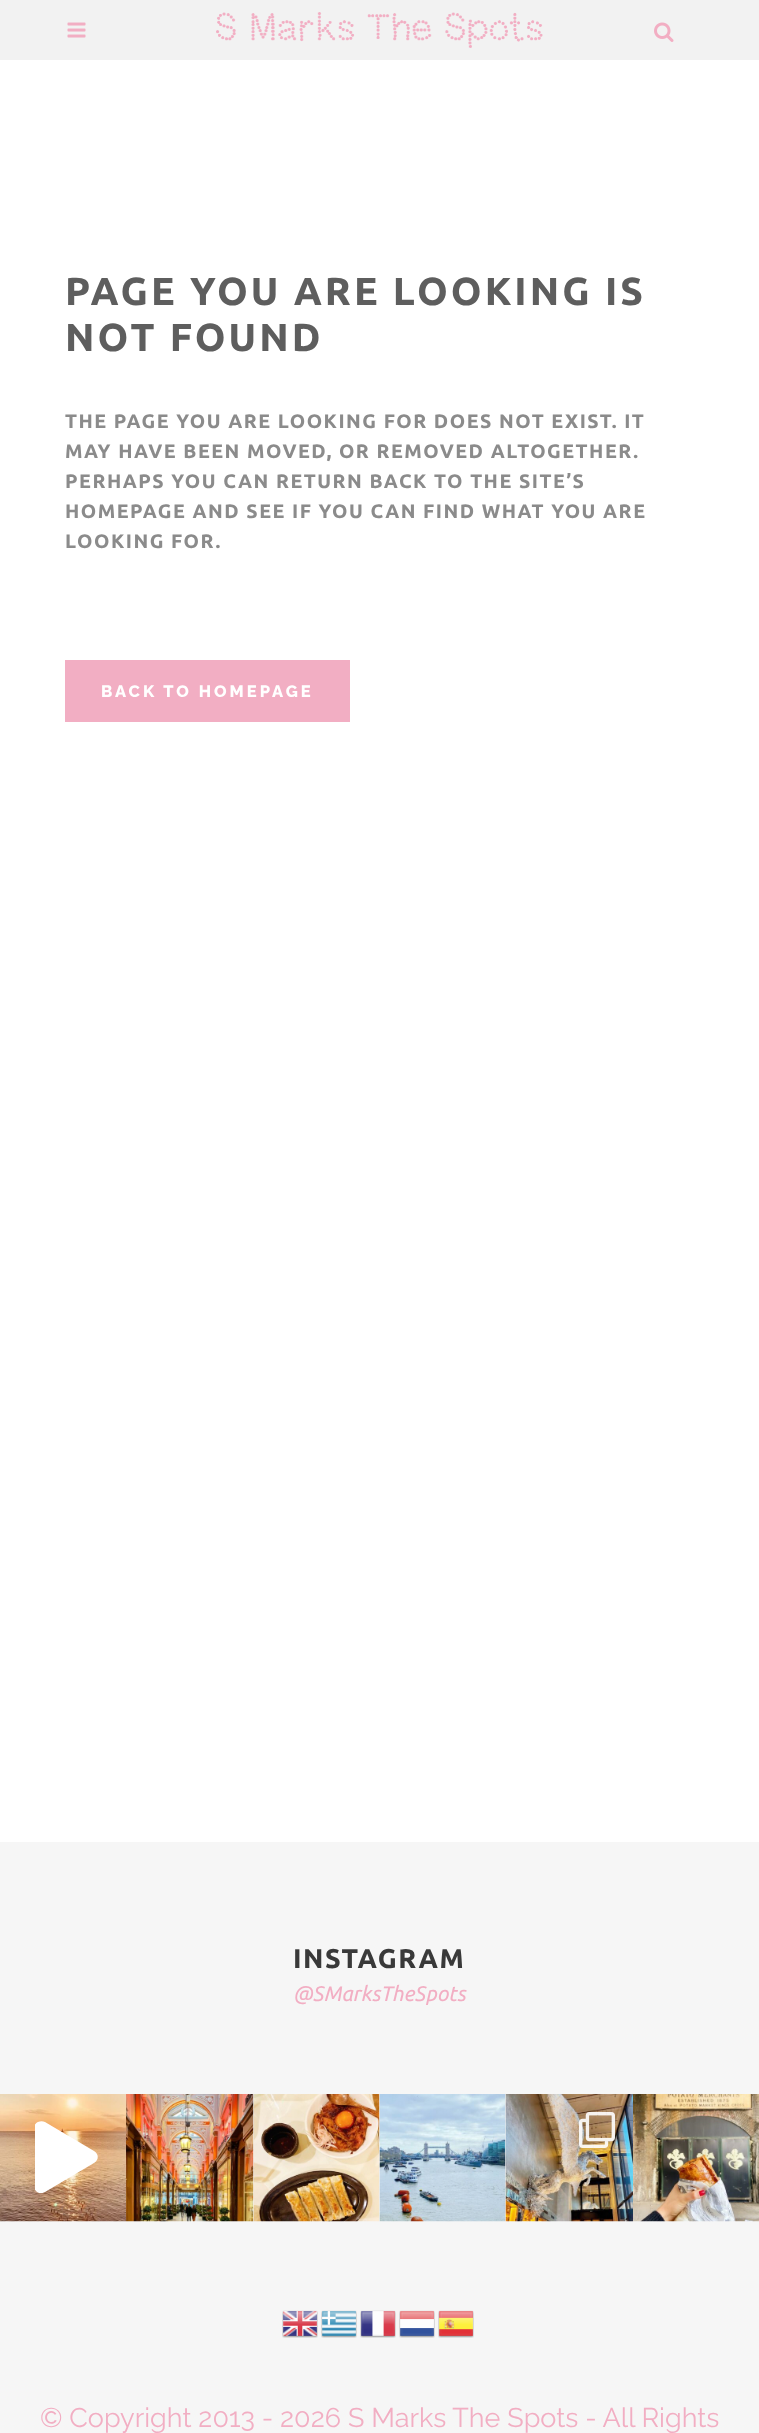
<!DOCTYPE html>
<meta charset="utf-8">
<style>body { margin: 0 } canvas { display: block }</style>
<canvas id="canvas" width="759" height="2433"></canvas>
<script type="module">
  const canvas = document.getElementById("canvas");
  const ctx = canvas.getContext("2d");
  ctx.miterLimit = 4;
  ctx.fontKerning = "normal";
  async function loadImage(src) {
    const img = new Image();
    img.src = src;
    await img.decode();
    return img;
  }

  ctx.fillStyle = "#ffffff";
  ctx.fillRect(0, 0, 759, 2433);
  ctx.fillStyle = "#f2f2f2";
  ctx.fillRect(0, 0, 759, 60);
  ctx.drawImage(await loadImage("img1.png"), 67, 22, 19, 16);
  ctx.drawImage(await loadImage("img2.png"), 216, 12, 327, 36);
  ctx.drawImage(await loadImage("img3.png"), 654, 22, 20, 20);
  ctx.letterSpacing = "3px";
  ctx.font = "bold 39px Ubuntu";
  ctx.fillStyle = "#5e5e5e";
  ctx.fillText("PAGE YOU ARE LOOKING IS", 65, 305);
  ctx.fillText("NOT FOUND", 65, 351);
  ctx.letterSpacing = "1.5px";
  ctx.font = "bold 19.5px Ubuntu";
  ctx.fillStyle = "#8b8b8b";
  ctx.fillText("THE PAGE YOU ARE LOOKING FOR DOES NOT EXIST. IT", 65, 428);
  ctx.fillText("MAY HAVE BEEN MOVED, OR REMOVED ALTOGETHER.", 65, 458);
  ctx.fillText("PERHAPS YOU CAN RETURN BACK TO THE SITE’S", 65, 488);
  ctx.fillText("HOMEPAGE AND SEE IF YOU CAN FIND WHAT YOU ARE", 65, 518);
  ctx.fillText("LOOKING FOR.", 65, 548);
  ctx.fillStyle = "#f2aec3";
  ctx.fillRect(65, 660, 285, 62);
  ctx.letterSpacing = "3px";
  ctx.font = "800 16.5px Raleway";
  ctx.fillStyle = "#ffffff";
  ctx.fillText("BACK TO HOMEPAGE", 101, 697);
  ctx.fillStyle = "#f6f6f6";
  ctx.fillRect(0, 1842, 759, 591);
  ctx.letterSpacing = "1.5px";
  ctx.font = "bold 27px Ubuntu";
  ctx.fillStyle = "#393939";
  ctx.fillText("INSTAGRAM", 293, 1968);
  ctx.letterSpacing = "0px";
  ctx.font = "italic 21px Ubuntu";
  ctx.fillStyle = "#f2aec3";
  ctx.fillText("@SMarksTheSpots", 293, 2001);
  ctx.drawImage(await loadImage("img4.png"), 0, 2094, 126, 128);
  ctx.save();
  ctx.beginPath();
  ctx.rect(35, 2121, 63, 72);
  ctx.clip();
  ctx.fillStyle = "#ffffff";
  ctx.beginPath();
  ctx.moveTo(94, 2151);
  ctx.lineTo(45, 2122);
  ctx.bezierCurveTo(41, 2120, 34, 2122, 34, 2128);
  ctx.lineTo(34, 2186);
  ctx.bezierCurveTo(34, 2192, 40, 2195, 45, 2192);
  ctx.lineTo(94, 2163);
  ctx.bezierCurveTo(99, 2160, 99, 2154, 94, 2151);
  ctx.closePath();
  ctx.fill();
  ctx.restore();
  ctx.drawImage(await loadImage("img5.png"), 126, 2094, 128, 128);
  ctx.drawImage(await loadImage("img6.png"), 253, 2094, 127, 128);
  ctx.drawImage(await loadImage("img7.png"), 379, 2094, 127, 128);
  ctx.drawImage(await loadImage("img8.png"), 505, 2094, 128, 128);
  ctx.drawImage(await loadImage("img9.png"), 579, 2112, 36, 36);
  ctx.drawImage(await loadImage("img10.png"), 633, 2094, 126, 128);
  ctx.drawImage(await loadImage("img11.png"), 282, 2310, 36, 28);
  ctx.drawImage(await loadImage("img12.png"), 321, 2310, 36, 28);
  ctx.drawImage(await loadImage("img13.png"), 360, 2310, 36, 28);
  ctx.drawImage(await loadImage("img14.png"), 399, 2310, 36, 28);
  ctx.drawImage(await loadImage("img15.png"), 438, 2310, 36, 28);
  ctx.font = "27px Raleway";
  ctx.fillText("© Copyright 2013 - 2026 S Marks The Spots - All Rights", 40, 2427);
</script>
